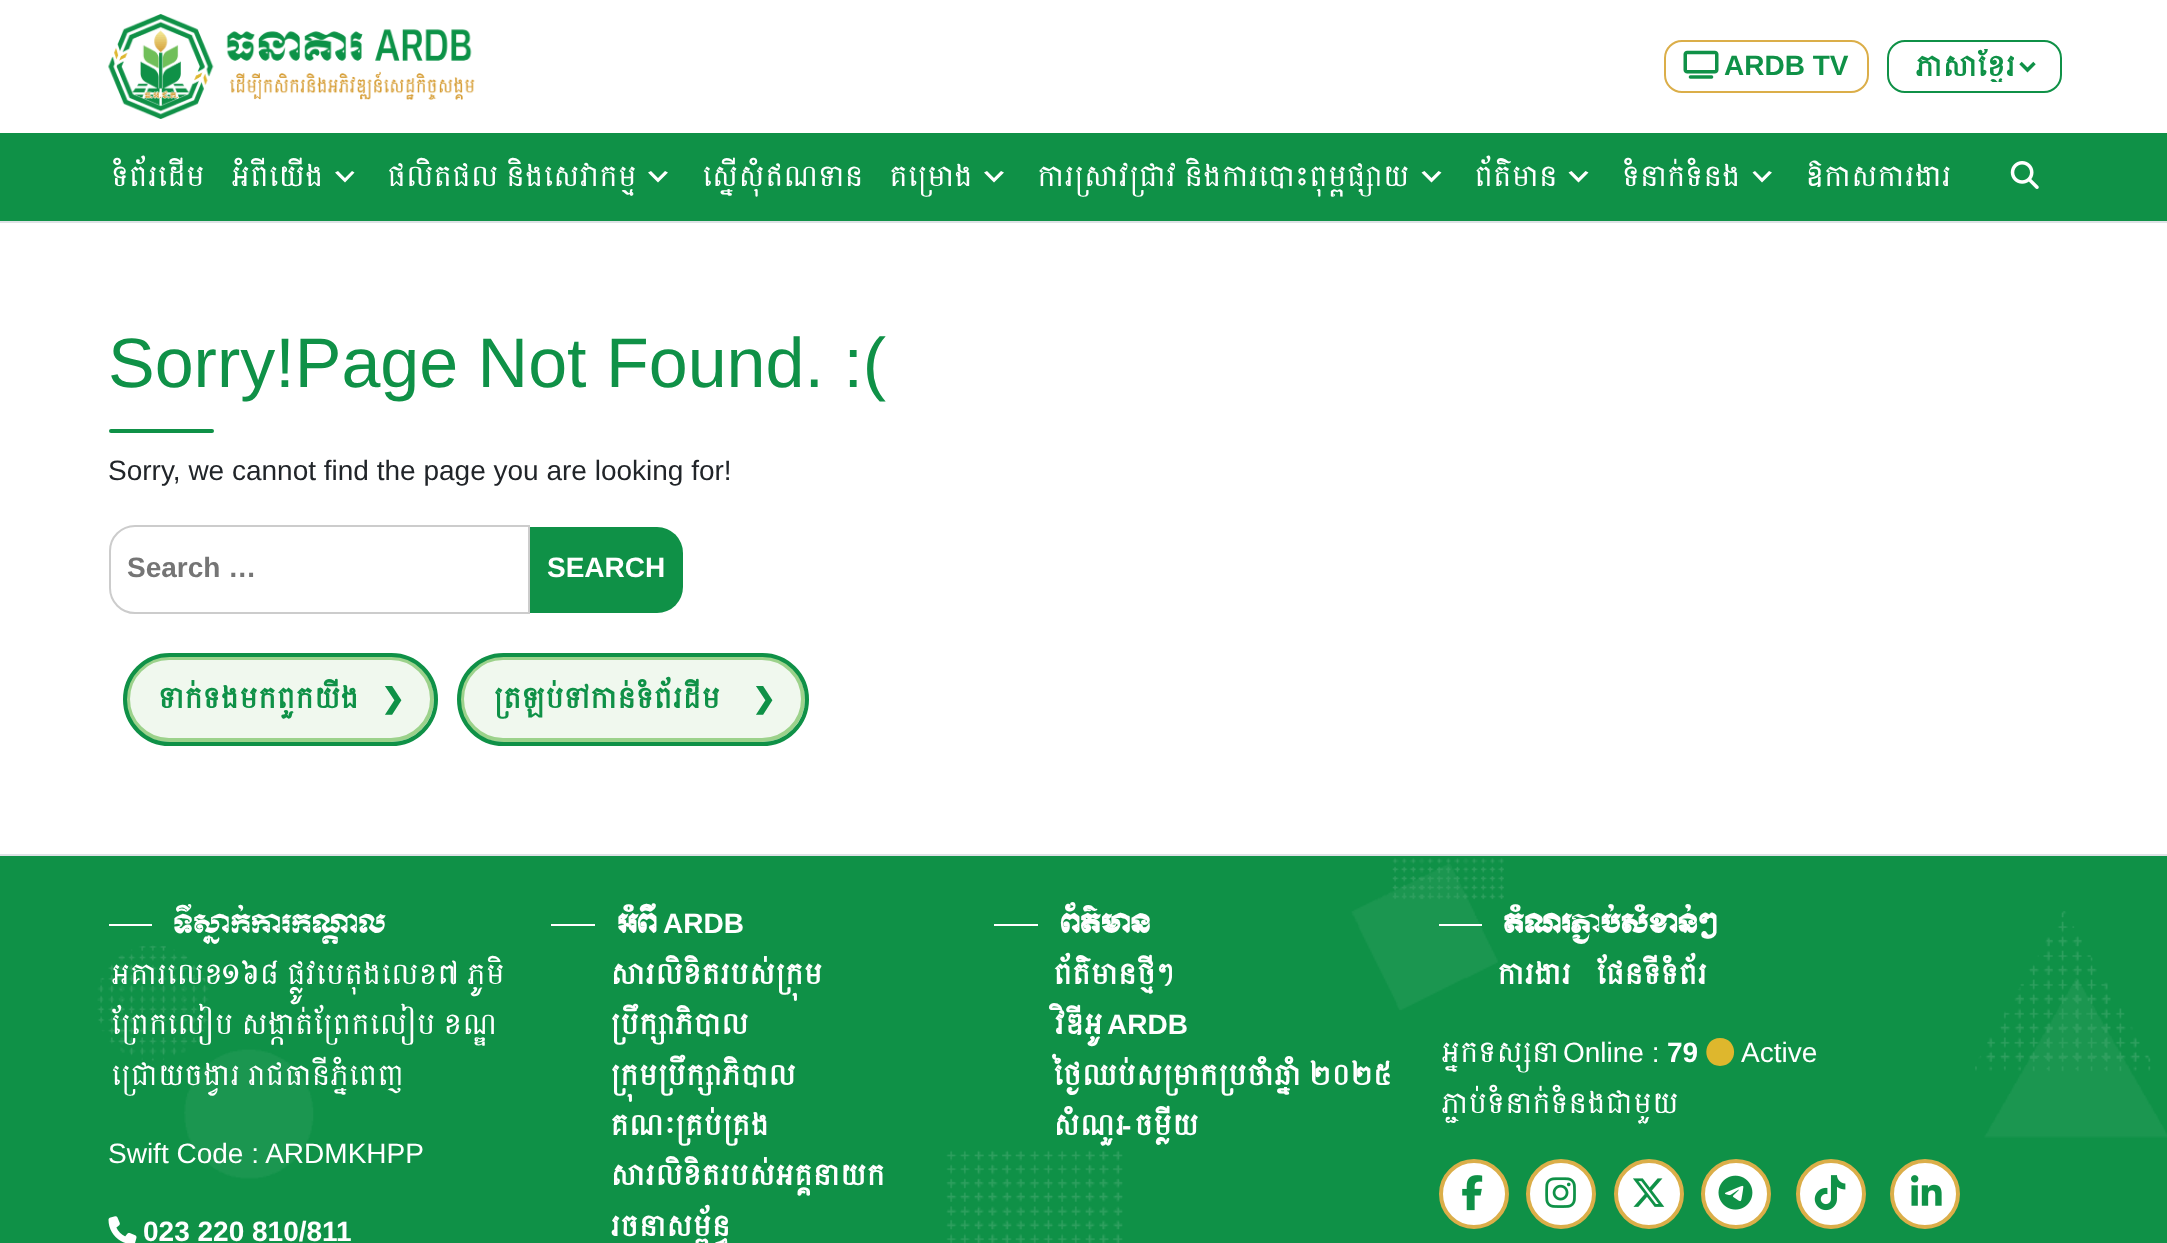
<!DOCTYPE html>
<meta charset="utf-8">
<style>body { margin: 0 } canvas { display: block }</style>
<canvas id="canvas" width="2167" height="1243"></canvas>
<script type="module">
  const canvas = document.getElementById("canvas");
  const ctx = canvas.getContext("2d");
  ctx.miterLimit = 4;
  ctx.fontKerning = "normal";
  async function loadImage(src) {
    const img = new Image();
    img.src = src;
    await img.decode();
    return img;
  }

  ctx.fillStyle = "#ffffff";
  ctx.fillRect(0, 0, 2167, 1243);
  ctx.drawImage(await loadImage("img1.png"), 108, 14, 367, 105);
  ctx.beginPath();
  ctx.roundRect(1665, 41, 203, 51, 17);
  ctx.strokeStyle = "#dbae49";
  ctx.lineWidth = 2;
  ctx.stroke();
  ctx.drawImage(await loadImage("img2.png"), 1683, 50, 36, 29);
  ctx.font = "bold 28px Liberation Sans";
  ctx.fillStyle = "#0f9147";
  ctx.fillText("ARDB TV", 1724, 75);
  ctx.beginPath();
  ctx.roundRect(1888, 41, 173, 51, 17);
  ctx.strokeStyle = "#0f9147";
  ctx.stroke();
  ctx.beginPath();
  ctx.moveTo(2020.5, 63);
  ctx.lineTo(2027.5, 70);
  ctx.lineTo(2034.5, 63);
  ctx.lineWidth = 3.5;
  ctx.stroke();
  ctx.save();
  ctx.beginPath();
  ctx.rect(1913, 49, 101, 33);
  ctx.clip();
  ctx.font = "bold 28px 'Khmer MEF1'";
  ctx.fillText("ភាសាខ្មែរ", 1912, 76);
  ctx.restore();
  ctx.fillRect(0, 133, 2167, 88);
  ctx.fillStyle = "#dee2e6";
  ctx.fillRect(0, 221, 2167, 2);
  ctx.font = "28px 'Khmer MEF1'";
  ctx.fillStyle = "#ffffff";
  ctx.fillText("ទំព័រដើម", 108, 186);
  ctx.fillText("អំពីយើង", 228, 186);
  ctx.beginPath();
  ctx.moveTo(338, 171);
  ctx.lineTo(345, 178);
  ctx.lineTo(352, 171);
  ctx.lineTo(354.5, 172.5);
  ctx.lineTo(345, 182.5);
  ctx.lineTo(335, 172.5);
  ctx.closePath();
  ctx.fill();
  ctx.wordSpacing = "-1px";
  ctx.fillText("ផលិតផល និងសេវាកម្ម", 384, 186);
  ctx.beginPath();
  ctx.moveTo(651, 171);
  ctx.lineTo(658, 178);
  ctx.lineTo(665, 171);
  ctx.lineTo(668, 172.5);
  ctx.lineTo(658, 182.5);
  ctx.lineTo(648, 172.5);
  ctx.closePath();
  ctx.fill();
  ctx.wordSpacing = "0px";
  ctx.fillText("ស្នើសុំឥណទាន", 699, 186);
  ctx.fillText("គម្រោង", 886, 186);
  ctx.beginPath();
  ctx.moveTo(987, 171);
  ctx.lineTo(994, 178);
  ctx.lineTo(1001, 171);
  ctx.lineTo(1004, 172.5);
  ctx.lineTo(994, 182.5);
  ctx.lineTo(984, 172.5);
  ctx.closePath();
  ctx.fill();
  ctx.wordSpacing = "-1px";
  ctx.fillText("ការស្រាវជ្រាវ និងការបោះពុម្ពផ្សាយ", 1034, 186);
  ctx.beginPath();
  ctx.moveTo(1424.5, 171);
  ctx.lineTo(1431.5, 178);
  ctx.lineTo(1438.5, 171);
  ctx.lineTo(1441.5, 172.5);
  ctx.lineTo(1431.5, 182.5);
  ctx.lineTo(1421.5, 172.5);
  ctx.closePath();
  ctx.fill();
  ctx.wordSpacing = "0px";
  ctx.fillText("ព័ត៌មាន", 1471, 186);
  ctx.beginPath();
  ctx.moveTo(1571.5, 171);
  ctx.lineTo(1578.5, 178);
  ctx.lineTo(1585.5, 171);
  ctx.lineTo(1588.5, 172.5);
  ctx.lineTo(1578.5, 182.5);
  ctx.lineTo(1568.5, 172.5);
  ctx.closePath();
  ctx.fill();
  ctx.fillText("ទំនាក់ទំនង", 1619, 186);
  ctx.beginPath();
  ctx.moveTo(1755, 171);
  ctx.lineTo(1762, 178);
  ctx.lineTo(1769, 171);
  ctx.lineTo(1772, 172.5);
  ctx.lineTo(1762, 182.5);
  ctx.lineTo(1752.5, 172.5);
  ctx.closePath();
  ctx.fill();
  ctx.fillText("ឱកាសការងារ", 1802, 186);
  ctx.drawImage(await loadImage("img3.png"), 2010, 161, 29, 28);
  ctx.font = "70px Liberation Sans";
  ctx.fillStyle = "#0f9147";
  ctx.fillText("Sorry!Page Not Found. :(", 108, 387);
  ctx.beginPath();
  ctx.roundRect(109, 429, 105, 4, 2);
  ctx.fill();
  ctx.font = "28px Liberation Sans";
  ctx.fillStyle = "#212529";
  ctx.fillText("Sorry, we cannot find the page you are looking for!", 108, 480);
  ctx.beginPath();
  ctx.roundRect(110, 526, 419, 87, [25, 0, 0, 25]);
  ctx.strokeStyle = "#cccccc";
  ctx.lineWidth = 2;
  ctx.stroke();
  ctx.font = "bold 28px Liberation Sans";
  ctx.fillStyle = "#757575";
  ctx.fillText("Search …", 127, 577);
  ctx.fillStyle = "#0f9147";
  ctx.beginPath();
  ctx.roundRect(530, 527, 153, 86, [0, 26, 26, 0]);
  ctx.fill();
  ctx.fillStyle = "#ffffff";
  ctx.fillText("SEARCH", 547, 577);
  ctx.save();
  ctx.beginPath();
  ctx.roundRect(126, 656, 308, 86, 43);
  ctx.clip();
  ctx.fillStyle = "#f0f8ee";
  ctx.fillRect(130, 660, 301, 79);
  ctx.restore();
  ctx.beginPath();
  ctx.roundRect(128, 658, 304, 82, 41);
  ctx.strokeStyle = "#9cd28b";
  ctx.lineWidth = 4;
  ctx.stroke();
  ctx.beginPath();
  ctx.roundRect(125, 655, 311, 89, 44.5);
  ctx.strokeStyle = "#0f9147";
  ctx.stroke();
  ctx.font = "bold 28px 'Khmer MEF1'";
  ctx.fillStyle = "#0f9147";
  ctx.fillText("ទាក់ទងមកពួកយើង", 155, 708);
  ctx.font = "bold 28px DejaVu Sans";
  ctx.fillText("❯", 381, 708);
  ctx.save();
  ctx.beginPath();
  ctx.roundRect(460, 656, 345, 86, 43);
  ctx.clip();
  ctx.fillStyle = "#f0f8ee";
  ctx.fillRect(464, 660, 338, 79);
  ctx.restore();
  ctx.beginPath();
  ctx.roundRect(462, 658, 341, 82, 41);
  ctx.strokeStyle = "#9cd28b";
  ctx.stroke();
  ctx.beginPath();
  ctx.roundRect(459, 655, 348, 89, 44.5);
  ctx.strokeStyle = "#0f9147";
  ctx.stroke();
  ctx.font = "bold 28px 'Khmer MEF1'";
  ctx.fillText("ត្រឡប់ទៅកាន់ទំព័រដើម", 490, 708);
  ctx.font = "bold 28px DejaVu Sans";
  ctx.fillText("❯", 752, 708);
  ctx.fillRect(0, 856, 2167, 387);
  ctx.drawImage(await loadImage("img4.png"), 97, 858, 2070, 385);
  ctx.fillStyle = "#dee2e6";
  ctx.fillRect(0, 854, 2167, 2);
  ctx.fillStyle = "#ffffff";
  ctx.fillRect(109, 924, 43, 2);
  ctx.font = "28px 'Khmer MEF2'";
  ctx.fillText("ទីស្នាក់ការកណ្តាល", 172, 933);
  ctx.wordSpacing = "-1px";
  ctx.font = "28px 'Khmer MEF1'";
  ctx.fillText("អគារលេខ១៦៨ ផ្លូវបេតុងលេខ៧ ភូមិ", 108, 984);
  ctx.fillText("ព្រែកលៀប សង្កាត់ព្រែកលៀប ខណ្ឌ", 108, 1034);
  ctx.fillText("ជ្រោយចង្វារ រាជធានីភ្នំពេញ", 108, 1085);
  ctx.wordSpacing = "0px";
  ctx.font = "28px Liberation Sans";
  ctx.fillText("Swift Code : ARDMKHPP", 108, 1163);
  ctx.drawImage(await loadImage("img5.png"), 108, 1216, 29, 27);
  ctx.font = "bold 28px Liberation Sans";
  ctx.fillText("023 220 810/811", 143, 1241);
  ctx.fillRect(551, 924, 44, 2);
  ctx.font = "bold 28px 'Khmer MEF2'";
  ctx.fillText("អំពី", 616, 933);
  ctx.font = "bold 28px Liberation Sans";
  ctx.fillText("ARDB", 663, 933);
  ctx.font = "bold 28px 'Khmer MEF1'";
  ctx.fillText("សារលិខិតរបស់ក្រុម", 607, 984);
  ctx.fillText("ប្រឹក្សាភិបាល", 607, 1034);
  ctx.fillText("ក្រុមប្រឹក្សាភិបាល", 607, 1085);
  ctx.fillText("គណៈគ្រប់គ្រង", 607, 1135);
  ctx.fillText("សារលិខិតរបស់អគ្គនាយក", 607, 1185);
  ctx.fillText("រចនាសម្ព័ន្ធ", 607, 1236);
  ctx.fillRect(994, 924, 44, 2);
  ctx.font = "bold 28px 'Khmer MEF2'";
  ctx.fillText("ព័ត៌មាន", 1059, 933);
  ctx.font = "bold 28px 'Khmer MEF1'";
  ctx.fillText("ព័ត៌មានថ្មីៗ", 1050, 984);
  ctx.fillText("វិឌីអូ", 1050, 1034);
  ctx.font = "bold 28px Liberation Sans";
  ctx.fillText("ARDB", 1107, 1034);
  ctx.wordSpacing = "-1px";
  ctx.font = "bold 28px 'Khmer MEF1'";
  ctx.fillText("ថ្ងៃឈប់សម្រាកប្រចាំឆ្នាំ ២០២៥", 1050, 1085);
  ctx.wordSpacing = "0px";
  ctx.fillText("សំណួរ", 1050, 1135);
  ctx.font = "bold 28px Liberation Sans";
  ctx.fillText("-", 1122, 1135);
  ctx.font = "bold 28px 'Khmer MEF1'";
  ctx.fillText("ចម្លើយ", 1131, 1135);
  ctx.fillRect(1439, 924, 43, 2);
  ctx.font = "bold 28px 'Khmer MEF2'";
  ctx.fillText("តំណរភ្ជាប់សំខាន់ៗ", 1502, 933);
  ctx.font = "bold 28px 'Khmer MEF1'";
  ctx.fillText("ការងារ", 1494, 984);
  ctx.fillText("ផែនទីទំព័រ", 1593, 984);
  ctx.font = "28px 'Khmer MEF1'";
  ctx.fillText("អ្នកទស្សនា", 1438, 1062);
  ctx.font = "28px Liberation Sans";
  ctx.fillText("Online :", 1563, 1062);
  ctx.font = "bold 28px Liberation Sans";
  ctx.fillText("79", 1667, 1062);
  ctx.fillStyle = "#deb72d";
  ctx.beginPath();
  ctx.moveTo(1720, 1066);
  ctx.bezierCurveTo(1739, 1065.5, 1738.5, 1038, 1720, 1038);
  ctx.bezierCurveTo(1702, 1038, 1701.5, 1065.5, 1720, 1066);
  ctx.closePath();
  ctx.fill();
  ctx.font = "28px Liberation Sans";
  ctx.fillStyle = "#ffffff";
  ctx.fillText("Active", 1741, 1062);
  ctx.font = "28px 'Khmer MEF1'";
  ctx.fillText("ភ្ជាប់ទំនាក់ទំនងជាមួយ", 1438, 1113);
  ctx.beginPath();
  ctx.arc(1474, 1194, 33, 0, Math.PI * 2);
  ctx.fill();
  ctx.strokeStyle = "#dbae49";
  ctx.stroke();
  ctx.drawImage(await loadImage("img6.png"), 1462, 1175, 21, 36);
  ctx.beginPath();
  ctx.arc(1561, 1194, 33, 0, Math.PI * 2);
  ctx.fill();
  ctx.stroke();
  ctx.drawImage(await loadImage("img7.png"), 1545, 1177, 31, 31);
  ctx.beginPath();
  ctx.arc(1649, 1194, 33, 0, Math.PI * 2);
  ctx.fill();
  ctx.stroke();
  ctx.drawImage(await loadImage("img8.png"), 1633, 1178, 32, 29);
  ctx.beginPath();
  ctx.arc(1736, 1194, 33, 0, Math.PI * 2);
  ctx.fill();
  ctx.stroke();
  ctx.drawImage(await loadImage("img9.png"), 1718, 1175, 35, 35);
  ctx.beginPath();
  ctx.arc(1831, 1194, 33, 0, Math.PI * 2);
  ctx.fill();
  ctx.stroke();
  ctx.drawImage(await loadImage("img10.png"), 1814, 1175, 32, 36);
  ctx.beginPath();
  ctx.arc(1925, 1194, 33, 0, Math.PI * 2);
  ctx.fill();
  ctx.stroke();
  ctx.drawImage(await loadImage("img11.png"), 1911, 1175, 31, 31);
</script>
